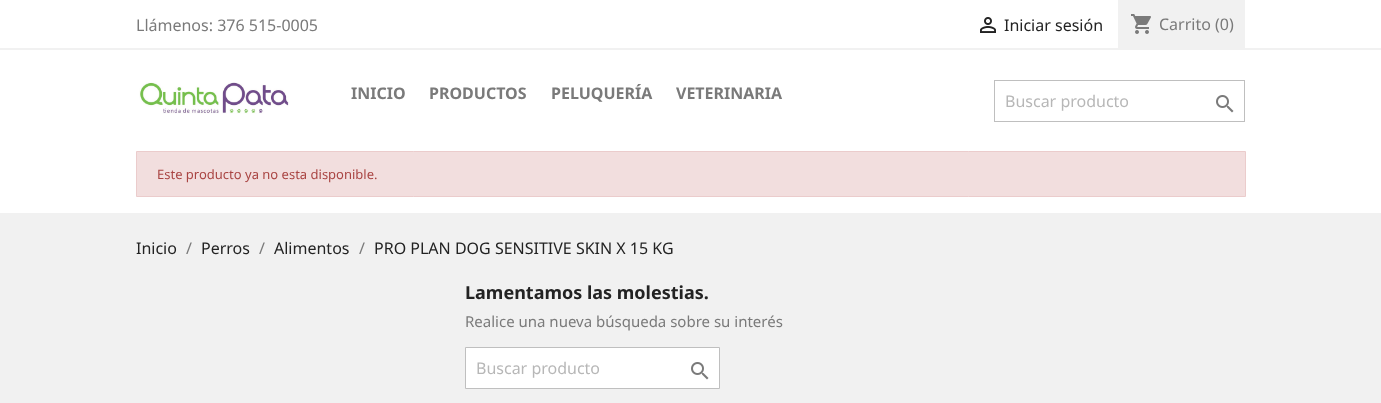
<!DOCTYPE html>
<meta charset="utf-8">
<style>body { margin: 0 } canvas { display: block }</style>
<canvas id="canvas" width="1381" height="403"></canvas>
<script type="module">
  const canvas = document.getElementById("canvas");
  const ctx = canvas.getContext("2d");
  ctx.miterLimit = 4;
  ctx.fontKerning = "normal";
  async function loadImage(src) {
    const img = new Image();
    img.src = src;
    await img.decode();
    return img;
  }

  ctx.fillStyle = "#ffffff";
  ctx.fillRect(0, 0, 1381, 403);
  ctx.fillStyle = "#f1f1f1";
  ctx.fillRect(0, 48, 1381, 2);
  ctx.font = "16px Noto Sans";
  ctx.fillStyle = "#7a7a7a";
  ctx.fillText("Llámenos: 376 515-0005", 136, 31);
  ctx.drawImage(await loadImage("img1.png"), 980, 17, 16, 16);
  ctx.fillStyle = "#232323";
  ctx.fillText("Iniciar sesión", 1004, 31);
  ctx.fillStyle = "#f1f1f1";
  ctx.fillRect(1118, 0, 127, 48);
  ctx.drawImage(await loadImage("img2.png"), 1131, 14, 20, 20);
  ctx.fillStyle = "#7a7a7a";
  ctx.fillText("Carrito (0)", 1159, 30);
  ctx.drawImage(await loadImage("img3.png"), 139, 82, 150, 32);
  ctx.font = "bold 16px Noto Sans";
  ctx.fillText("INICIO", 351, 99);
  ctx.fillText("PRODUCTOS", 429, 99);
  ctx.fillText("PELUQUERÍA", 551, 99);
  ctx.fillText("VETERINARIA", 676, 99);
  ctx.strokeStyle = "#bfbfbf";
  ctx.strokeRect(994.5, 80.5, 250, 41);
  ctx.font = "16px Noto Sans";
  ctx.fillStyle = "#b7b7b7";
  ctx.fillText("Buscar producto", 1005, 107);
  ctx.drawImage(await loadImage("img4.png"), 1216, 95, 18, 18);
  ctx.fillStyle = "#f2dede";
  ctx.beginPath();
  ctx.rect(136.5, 151.5, 1109, 45);
  ctx.fill();
  ctx.strokeStyle = "#ebcccc";
  ctx.stroke();
  ctx.font = "13px Noto Sans";
  ctx.fillStyle = "#a94442";
  ctx.fillText("Este producto ya no esta disponible.", 157, 179);
  ctx.fillStyle = "#f1f1f1";
  ctx.fillRect(0, 213, 1381, 190);
  ctx.font = "16px Noto Sans";
  ctx.fillStyle = "#232323";
  ctx.fillText("Inicio", 136, 254);
  ctx.fillStyle = "#7a7a7a";
  ctx.fillText("/", 186, 254);
  ctx.fillStyle = "#232323";
  ctx.fillText("Perros", 201, 254);
  ctx.fillStyle = "#7a7a7a";
  ctx.fillText("/", 259, 254);
  ctx.fillStyle = "#232323";
  ctx.fillText("Alimentos", 274, 254);
  ctx.fillStyle = "#7a7a7a";
  ctx.fillText("/", 359, 254);
  ctx.fillStyle = "#232323";
  ctx.fillText("PRO PLAN DOG SENSITIVE SKIN X 15 KG", 374, 254);
  ctx.font = "bold 18px Noto Sans";
  ctx.fillText("Lamentamos las molestias.", 465, 299);
  ctx.font = "15px Noto Sans";
  ctx.fillStyle = "#7a7a7a";
  ctx.fillText("Realice una nueva búsqueda sobre su interés", 465, 327);
  ctx.fillStyle = "#ffffff";
  ctx.beginPath();
  ctx.rect(465.5, 347.5, 254, 41);
  ctx.fill();
  ctx.strokeStyle = "#bfbfbf";
  ctx.stroke();
  ctx.font = "16px Noto Sans";
  ctx.fillStyle = "#b7b7b7";
  ctx.fillText("Buscar producto", 476, 374);
  ctx.drawImage(await loadImage("img4.png"), 691, 362, 18, 18);
</script>
